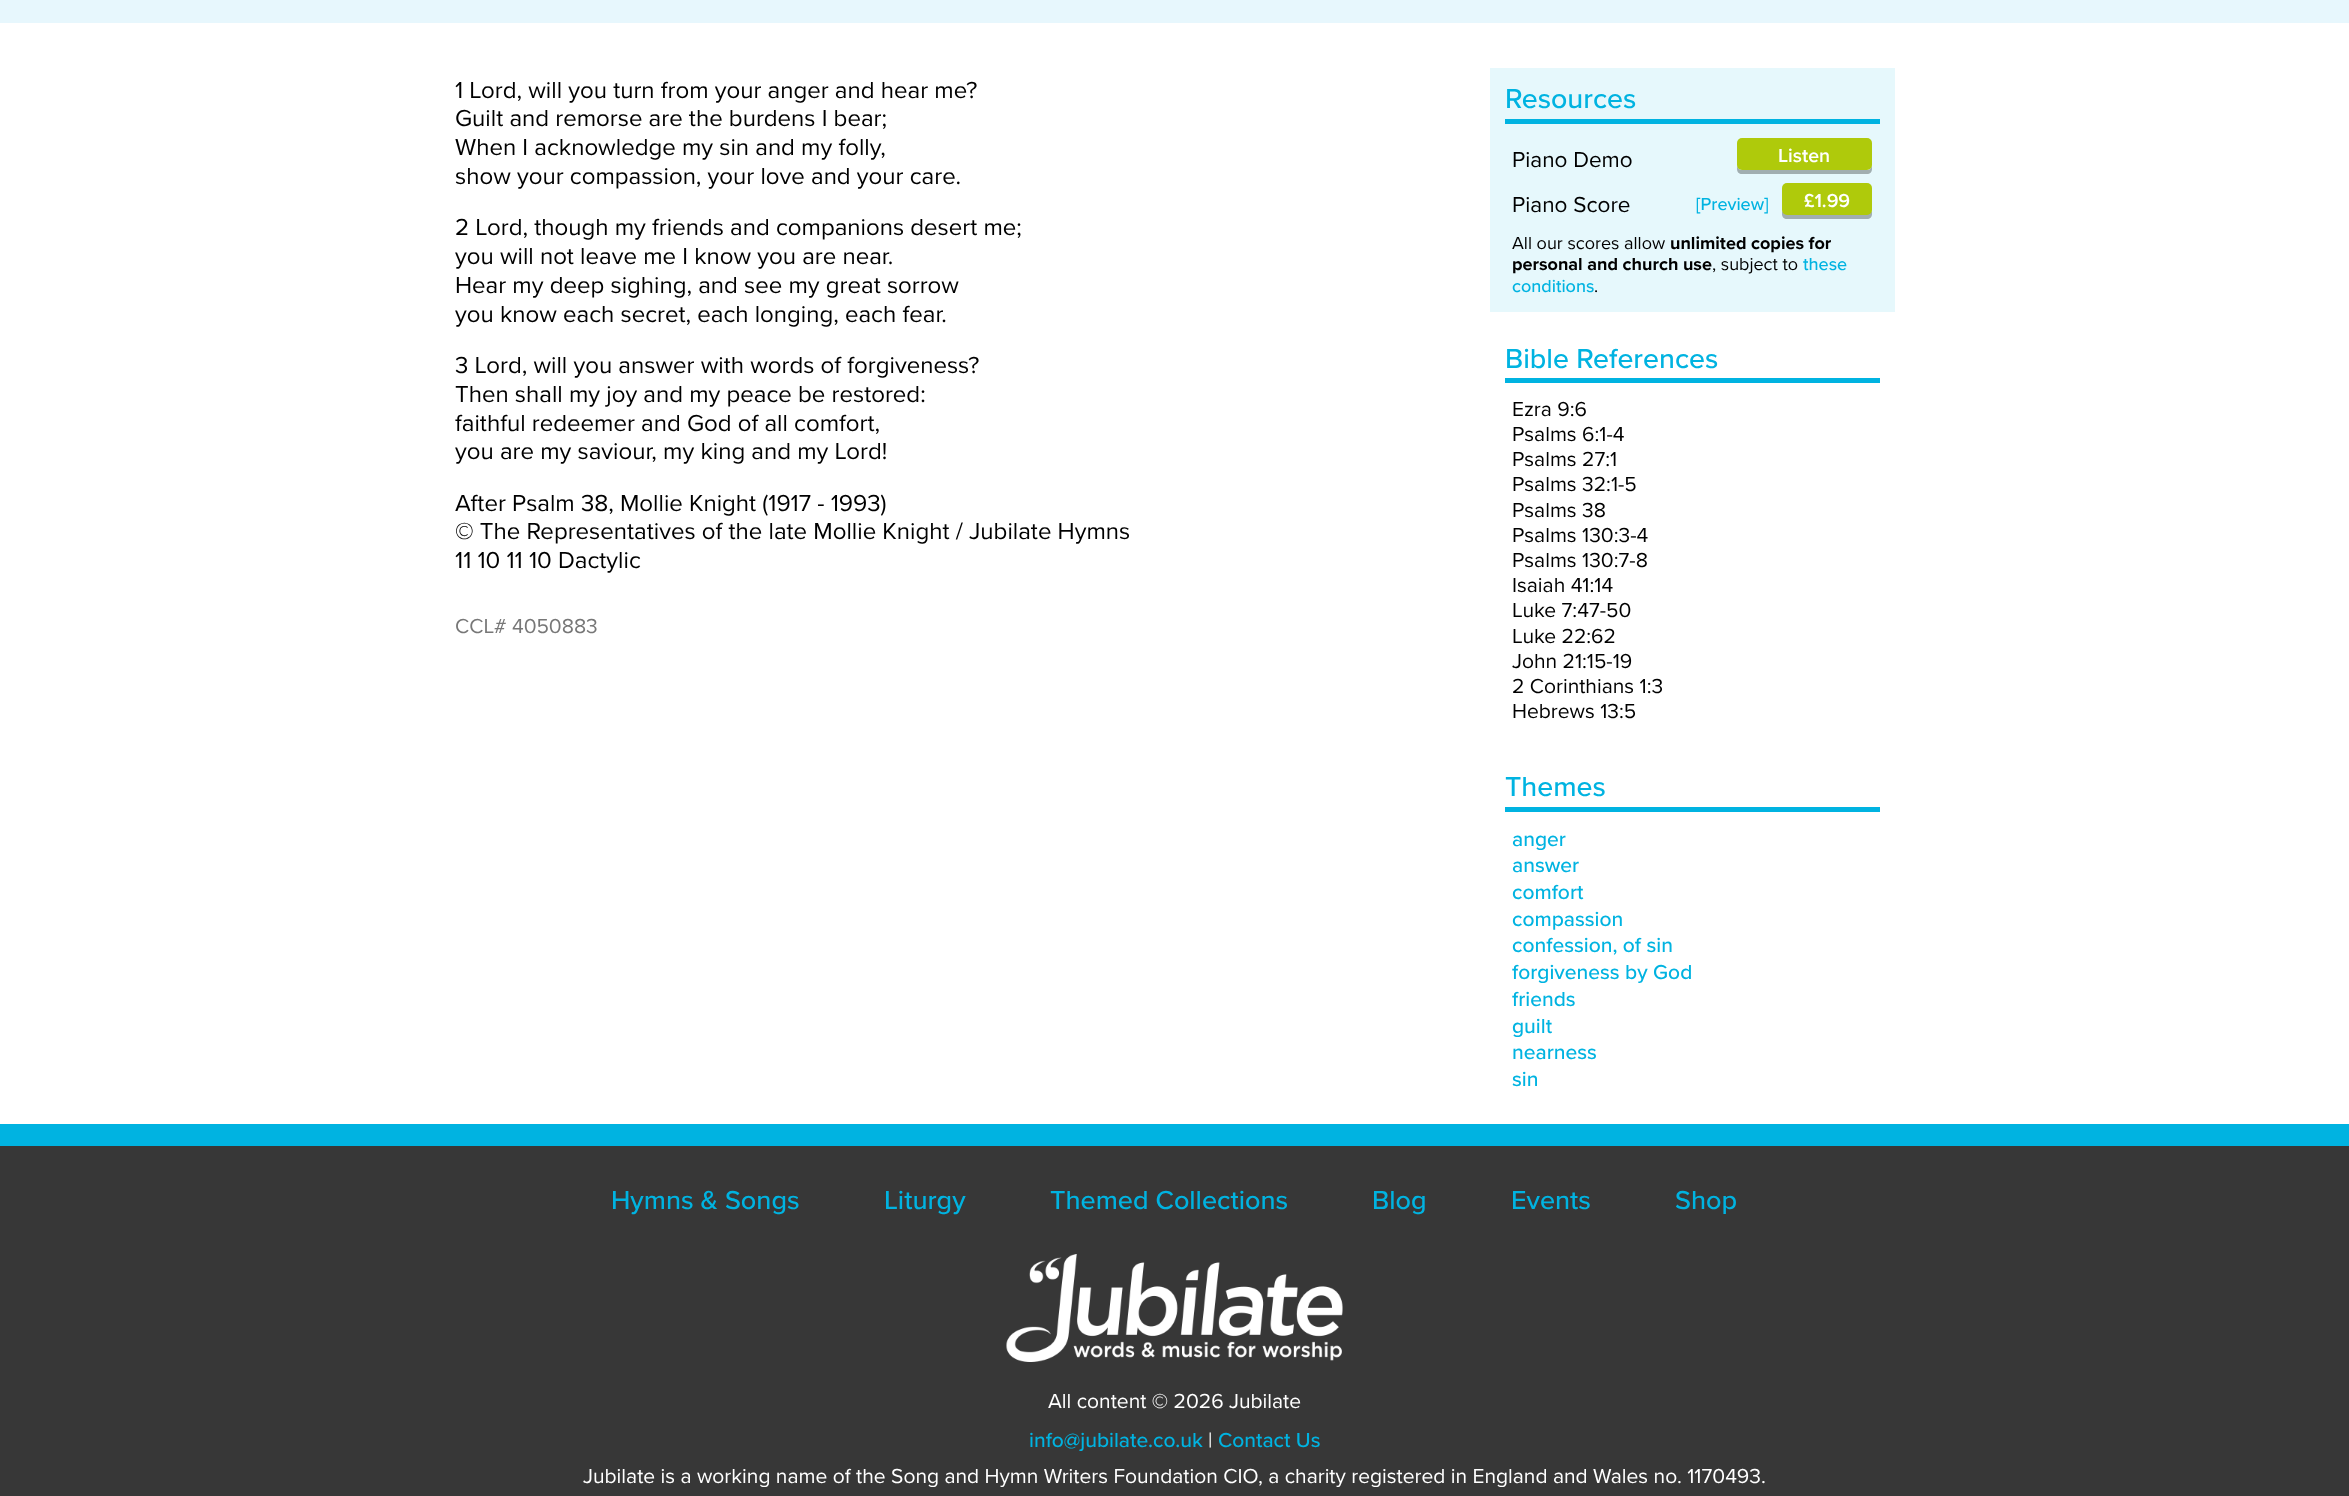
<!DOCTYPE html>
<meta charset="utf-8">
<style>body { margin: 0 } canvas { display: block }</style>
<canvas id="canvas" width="2349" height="1496"></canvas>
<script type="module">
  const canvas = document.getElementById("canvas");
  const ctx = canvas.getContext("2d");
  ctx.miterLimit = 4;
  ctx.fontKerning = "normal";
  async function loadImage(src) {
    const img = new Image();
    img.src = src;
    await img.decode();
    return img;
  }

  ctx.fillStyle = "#ffffff";
  ctx.fillRect(0, 0, 2349, 1496);
  ctx.fillStyle = "#e7f7fd";
  ctx.fillRect(0, 0, 2349, 23);
  ctx.font = "24px Proxima Nova";
  ctx.fillStyle = "#000000";
  ctx.fillText("1 Lord, will you turn from your anger and hear me?", 455, 98);
  ctx.fillText("Guilt and remorse are the burdens I bear;", 455, 126);
  ctx.fillText("When I acknowledge my sin and my folly,", 455, 155);
  ctx.fillText("show your compassion, your love and your care.", 455, 184);
  ctx.fillText("2 Lord, though my friends and companions desert me;", 455, 235);
  ctx.fillText("you will not leave me I know you are near.", 455, 264);
  ctx.fillText("Hear my deep sighing, and see my great sorrow", 455, 293);
  ctx.fillText("you know each secret, each longing, each fear.", 455, 322);
  ctx.fillText("3 Lord, will you answer with words of forgiveness?", 455, 373);
  ctx.fillText("Then shall my joy and my peace be restored:", 455, 402);
  ctx.fillText("faithful redeemer and God of all comfort,", 455, 431);
  ctx.fillText("you are my saviour, my king and my Lord!", 455, 459);
  ctx.fillText("After Psalm 38, Mollie Knight (1917 - 1993)", 455, 511);
  ctx.fillText("© The Representatives of the late Mollie Knight / Jubilate Hymns", 455, 539);
  ctx.fillText("11 10 11 10 Dactylic", 455, 568);
  ctx.font = "21px Proxima Nova";
  ctx.fillStyle = "#777777";
  ctx.fillText("CCL# 4050883", 455, 633);
  ctx.fillStyle = "#e6f8fc";
  ctx.fillRect(1490, 68, 405, 244);
  ctx.fillStyle = "#00b3e1";
  ctx.fillRect(1505, 119, 375, 5);
  ctx.font = "500 28.5px Proxima Nova";
  ctx.fillText("Resources", 1505, 108);
  ctx.font = "22.5px Proxima Nova";
  ctx.fillStyle = "#000000";
  ctx.fillText("Piano Demo", 1512, 167);
  ctx.fillStyle = "#a1aeb0";
  ctx.beginPath();
  ctx.moveTo(1737, 165);
  ctx.lineTo(1737, 169);
  ctx.bezierCurveTo(1737, 172, 1739, 174, 1742, 174);
  ctx.lineTo(1867, 174);
  ctx.bezierCurveTo(1870, 174, 1872, 172, 1872, 169);
  ctx.lineTo(1872, 165);
  ctx.bezierCurveTo(1872, 167, 1870, 170, 1868, 170);
  ctx.lineTo(1742, 170);
  ctx.bezierCurveTo(1739, 170, 1737, 167, 1737, 165);
  ctx.closePath();
  ctx.fill();
  ctx.fillStyle = "#afca0b";
  ctx.beginPath();
  ctx.roundRect(1737, 138, 135, 32, 5);
  ctx.fill();
  ctx.font = "600 19.5px Proxima Nova";
  ctx.fillStyle = "#ffffff";
  ctx.fillText("Listen", 1778, 162);
  ctx.font = "22.5px Proxima Nova";
  ctx.fillStyle = "#000000";
  ctx.fillText("Piano Score", 1512, 212);
  ctx.font = "500 18px Proxima Nova";
  ctx.fillStyle = "#00b3e1";
  ctx.fillText("[Preview]", 1696, 210);
  ctx.fillStyle = "#a1aeb0";
  ctx.beginPath();
  ctx.moveTo(1782, 210);
  ctx.lineTo(1782, 214);
  ctx.bezierCurveTo(1782, 217, 1784, 219, 1787, 219);
  ctx.lineTo(1867, 219);
  ctx.bezierCurveTo(1870, 219, 1872, 217, 1872, 214);
  ctx.lineTo(1872, 210);
  ctx.bezierCurveTo(1872, 212, 1870, 214, 1868, 214);
  ctx.lineTo(1786, 214);
  ctx.bezierCurveTo(1784, 214, 1782, 212, 1782, 210);
  ctx.closePath();
  ctx.fill();
  ctx.fillStyle = "#afca0b";
  ctx.beginPath();
  ctx.roundRect(1782, 183, 90, 32, 5);
  ctx.fill();
  ctx.font = "600 19.5px Proxima Nova";
  ctx.fillStyle = "#ffffff";
  ctx.fillText("£1.99", 1804, 207);
  ctx.font = "18px Proxima Nova";
  ctx.fillStyle = "#000000";
  ctx.fillText("All our scores allow", 1512, 249);
  ctx.font = "bold 18px Proxima Nova";
  ctx.fillText("unlimited copies for", 1670, 249);
  ctx.fillText("personal and church use", 1512, 270);
  ctx.font = "18px Proxima Nova";
  ctx.fillText(", subject to", 1712, 270);
  ctx.font = "500 18px Proxima Nova";
  ctx.fillStyle = "#00b3e1";
  ctx.fillText("these", 1803, 270);
  ctx.fillText("conditions", 1512, 292);
  ctx.font = "18px Proxima Nova";
  ctx.fillStyle = "#000000";
  ctx.fillText(".", 1594, 292);
  ctx.fillStyle = "#00b3e1";
  ctx.fillRect(1505, 378, 375, 5);
  ctx.font = "500 28.5px Proxima Nova";
  ctx.fillText("Bible References", 1505, 368);
  ctx.font = "21px Proxima Nova";
  ctx.fillStyle = "#000000";
  ctx.fillText("Ezra 9:6", 1512, 416);
  ctx.fillText("Psalms 6:1-4", 1512, 441);
  ctx.fillText("Psalms 27:1", 1512, 466);
  ctx.fillText("Psalms 32:1-5", 1512, 491);
  ctx.fillText("Psalms 38", 1512, 517);
  ctx.fillText("Psalms 130:3-4", 1512, 542);
  ctx.fillText("Psalms 130:7-8", 1512, 567);
  ctx.fillText("Isaiah 41:14", 1512, 592);
  ctx.fillText("Luke 7:47-50", 1512, 617);
  ctx.fillText("Luke 22:62", 1512, 643);
  ctx.fillText("John 21:15-19", 1512, 668);
  ctx.fillText("2 Corinthians 1:3", 1512, 693);
  ctx.fillText("Hebrews 13:5", 1512, 718);
  ctx.fillStyle = "#00b3e1";
  ctx.fillRect(1505, 807, 375, 5);
  ctx.font = "500 28.5px Proxima Nova";
  ctx.fillText("Themes", 1505, 796);
  ctx.font = "500 21px Proxima Nova";
  ctx.fillText("anger", 1512, 846);
  ctx.fillText("answer", 1512, 872);
  ctx.fillText("comfort", 1512, 899);
  ctx.fillText("compassion", 1512, 926);
  ctx.fillText("confession, of sin", 1512, 952);
  ctx.fillText("forgiveness by God", 1512, 979);
  ctx.fillText("friends", 1512, 1006);
  ctx.fillText("guilt", 1512, 1033);
  ctx.fillText("nearness", 1512, 1059);
  ctx.fillText("sin", 1512, 1086);
  ctx.fillStyle = "#373737";
  ctx.fillRect(0, 1146, 2349, 350);
  ctx.fillStyle = "#00b3e1";
  ctx.fillRect(0, 1124, 2349, 22);
  ctx.font = "500 27px Proxima Nova";
  ctx.fillText("Hymns & Songs", 611, 1209);
  ctx.fillText("Liturgy", 884, 1209);
  ctx.fillText("Themed Collections", 1050, 1209);
  ctx.fillText("Blog", 1372, 1209);
  ctx.fillText("Events", 1511, 1209);
  ctx.fillText("Shop", 1675, 1209);
  ctx.drawImage(await loadImage("img1.png"), 1006, 1254, 337, 108);
  ctx.font = "21px Proxima Nova";
  ctx.fillStyle = "#ffffff";
  ctx.fillText("All content © 2026 Jubilate", 1048, 1408);
  ctx.font = "500 21px Proxima Nova";
  ctx.fillStyle = "#00b3e1";
  ctx.fillText("info@jubilate.co.uk", 1029, 1447);
  ctx.font = "21px Proxima Nova";
  ctx.fillStyle = "#ffffff";
  ctx.fillText("|", 1208, 1447);
  ctx.font = "500 21px Proxima Nova";
  ctx.fillStyle = "#00b3e1";
  ctx.fillText("Contact Us", 1218, 1447);
  ctx.font = "21px Proxima Nova";
  ctx.fillStyle = "#ffffff";
  ctx.fillText("Jubilate is a working name of the Song and Hymn Writers Foundation CIO, a charity registered in England and Wales no. 1170493.", 583, 1483);
</script>
